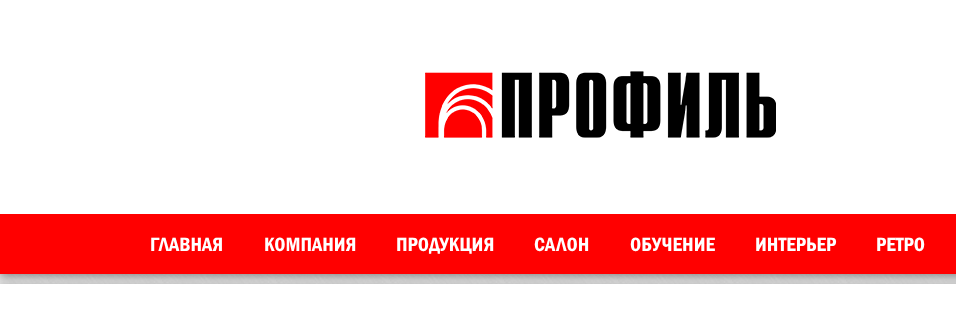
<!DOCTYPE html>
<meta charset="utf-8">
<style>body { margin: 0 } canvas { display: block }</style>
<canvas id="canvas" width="956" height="333"></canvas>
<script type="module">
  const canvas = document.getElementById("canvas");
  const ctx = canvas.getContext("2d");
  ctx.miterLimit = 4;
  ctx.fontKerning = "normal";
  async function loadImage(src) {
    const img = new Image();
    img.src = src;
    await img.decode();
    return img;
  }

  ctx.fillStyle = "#e6e6e6";
  ctx.fillRect(0, 0, 956, 333);
  ctx.drawImage(await loadImage("img1.png"), 3, 274, 944, 10);
  ctx.fillStyle = "rgba(0, 0, 0, 0.4)";
  ctx.filter = "blur(5px)";
  ctx.beginPath();
  ctx.rect(0, 3, 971, 274);
  ctx.fill();
  ctx.filter = "none";
  ctx.fillStyle = "#ffffff";
  ctx.fillRect(0, 0, 956, 214);
  ctx.drawImage(await loadImage("img2.png"), 425, 71, 351, 67);
  ctx.fillStyle = "#ff0000";
  ctx.fillRect(0, 214, 956, 60);
  ctx.font = "20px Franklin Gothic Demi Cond";
  ctx.fillStyle = "#ffffff";
  ctx.fillText("ГЛАВНАЯ", 150, 251);
  ctx.fillText("КОМПАНИЯ", 264, 251);
  ctx.fillText("ПРОДУКЦИЯ", 396, 251);
  ctx.fillText("САЛОН", 534, 251);
  ctx.fillText("ОБУЧЕНИЕ", 630, 251);
  ctx.fillText("ИНТЕРЬЕР", 755, 251);
  ctx.fillText("РЕТРО", 876, 251);
  ctx.fillStyle = "rgba(0, 0, 0, 0.4)";
  ctx.filter = "blur(5px)";
  ctx.beginPath();
  ctx.rect(0, 287, 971, 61);
  ctx.fill();
  ctx.filter = "none";
  ctx.fillStyle = "#ffffff";
  ctx.fillRect(0, 284, 956, 49);
</script>
